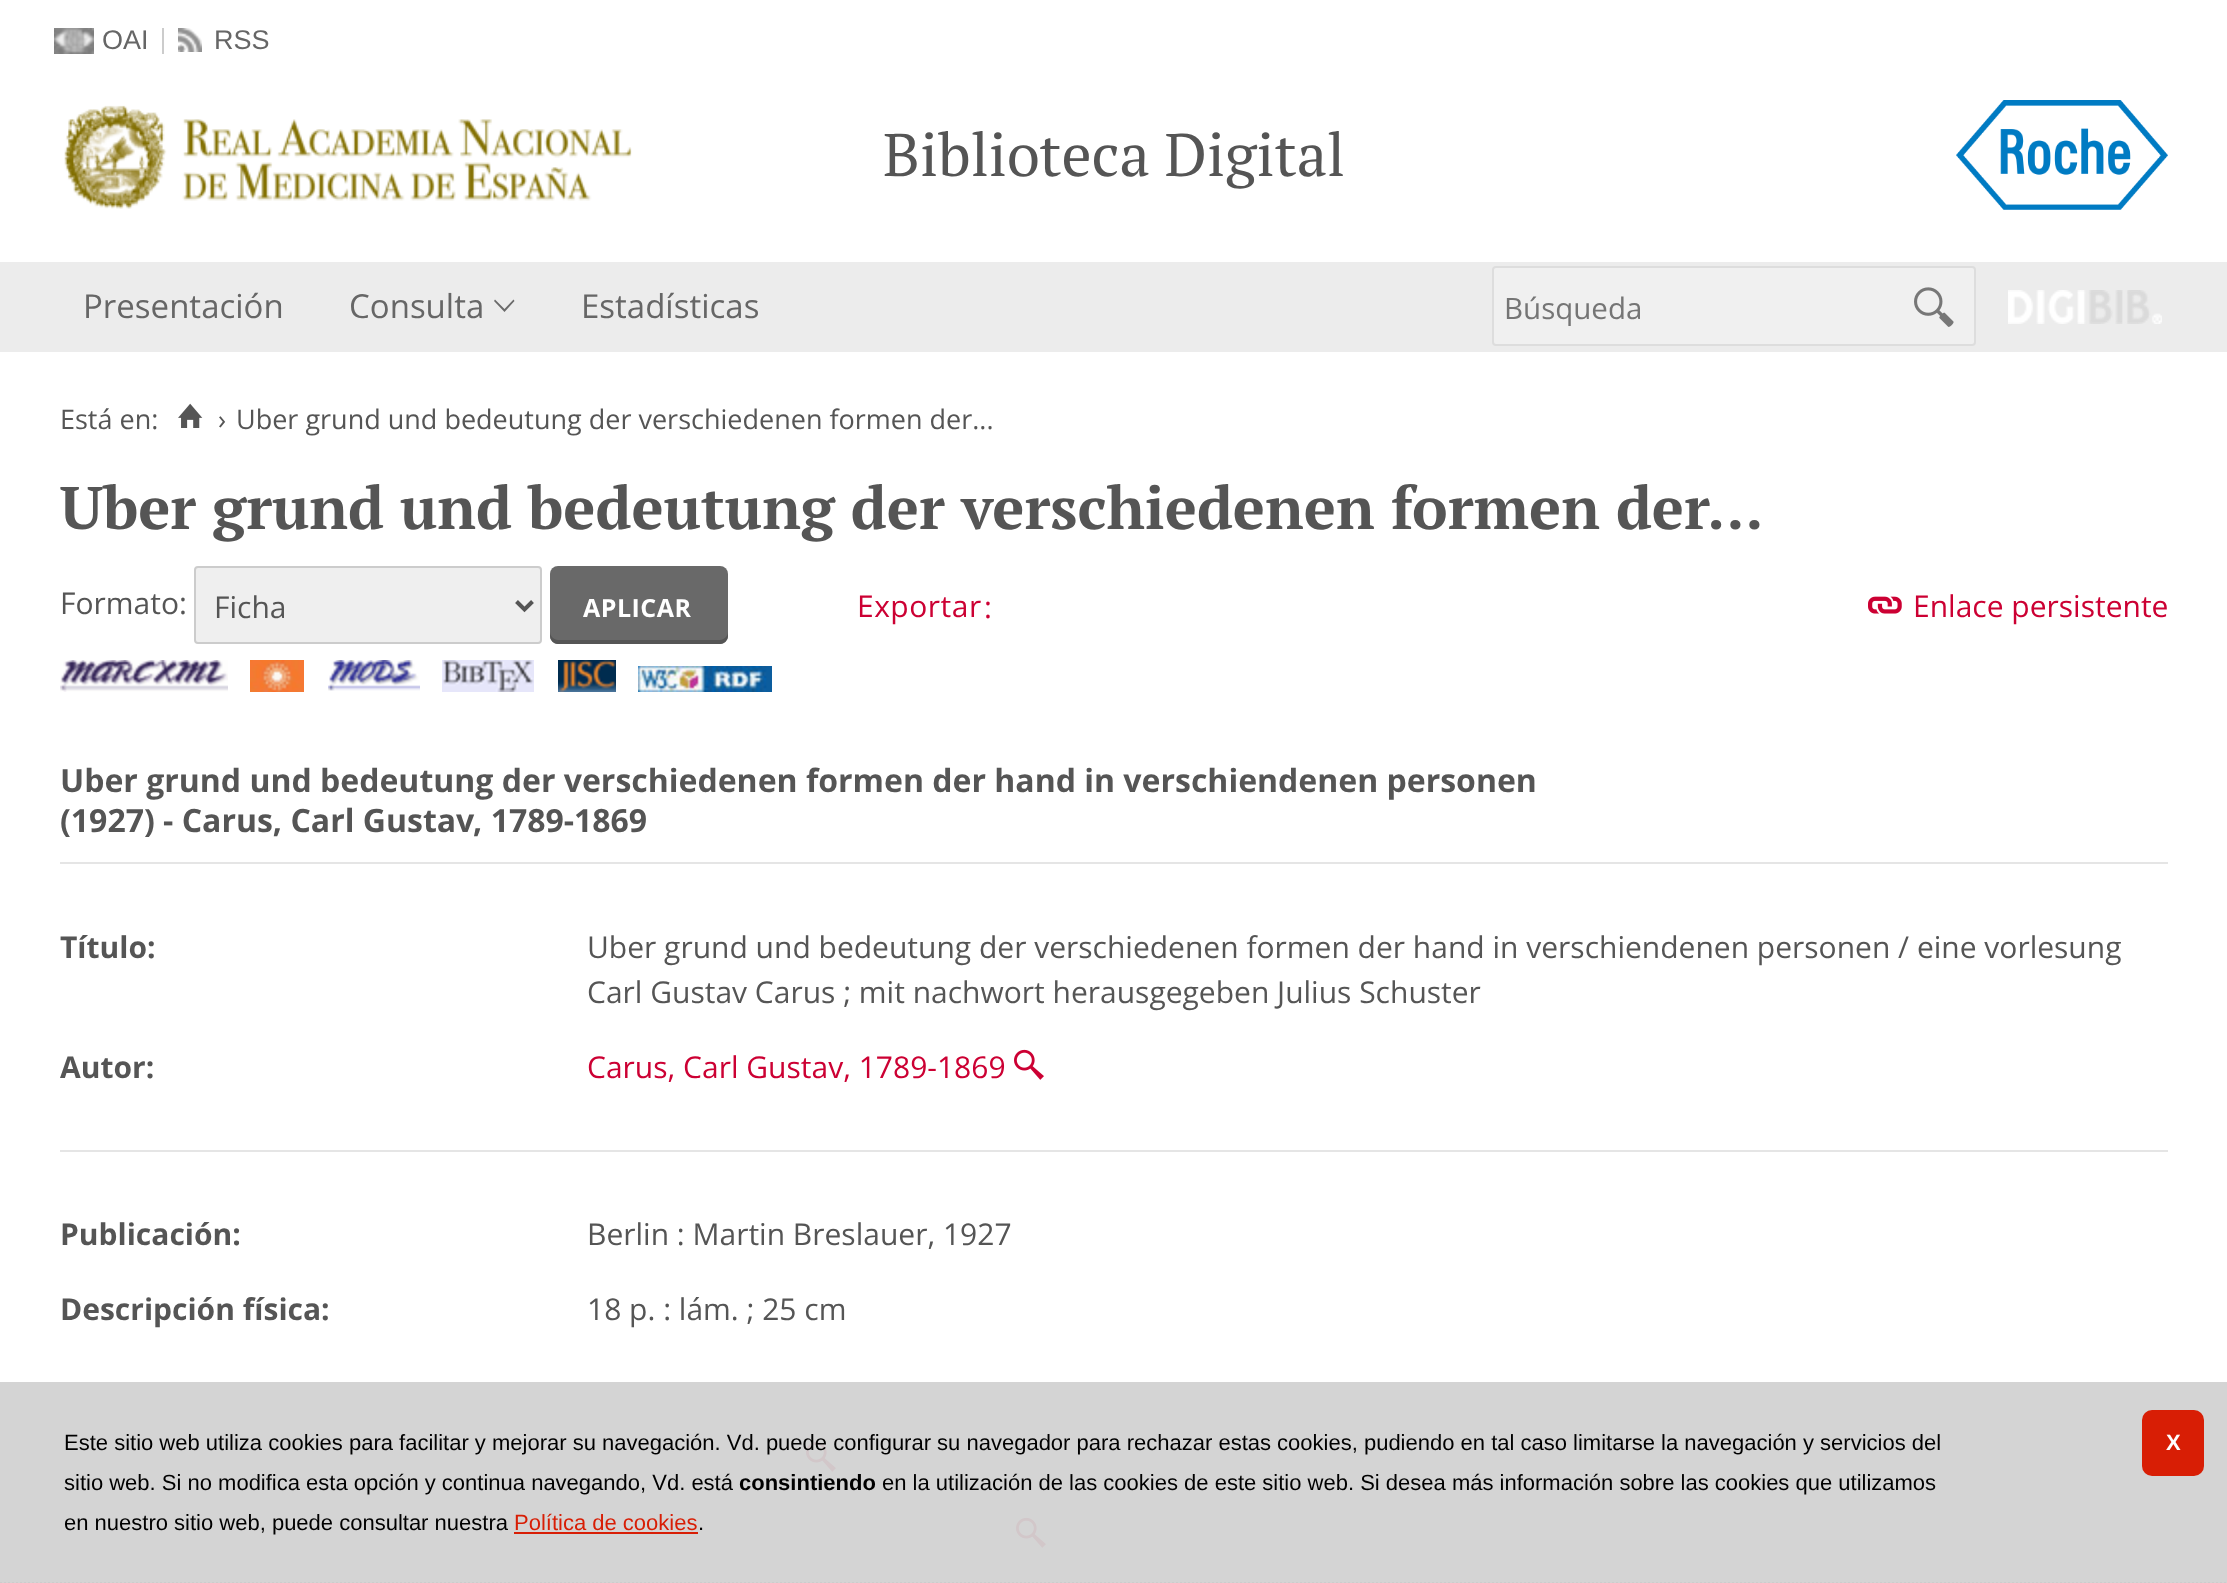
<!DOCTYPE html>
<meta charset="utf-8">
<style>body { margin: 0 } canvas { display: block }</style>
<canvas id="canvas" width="2227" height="1583"></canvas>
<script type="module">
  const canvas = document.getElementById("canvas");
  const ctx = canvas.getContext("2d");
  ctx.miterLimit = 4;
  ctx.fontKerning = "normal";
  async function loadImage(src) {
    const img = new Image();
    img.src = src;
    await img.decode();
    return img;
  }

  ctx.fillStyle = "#ffffff";
  ctx.fillRect(0, 0, 2227, 1583);
  ctx.drawImage(await loadImage("img1.png"), 54, 28, 40, 26);
  ctx.font = "27px Liberation Sans";
  ctx.fillStyle = "#666666";
  ctx.fillText("OAI", 102, 49);
  ctx.fillStyle = "#cccccc";
  ctx.fillRect(162, 28, 2, 26);
  ctx.drawImage(await loadImage("img2.png"), 178, 28, 24, 24);
  ctx.fillStyle = "#666666";
  ctx.fillText("RSS", 214, 49);
  ctx.drawImage(await loadImage("img3.png"), 64, 105, 568, 104);
  ctx.font = "60px PT Serif";
  ctx.fillStyle = "#555555";
  ctx.fillText("Biblioteca Digital", 883, 176);
  ctx.drawImage(await loadImage("img4.png"), 1956, 100, 212, 110);
  ctx.fillStyle = "#ececec";
  ctx.fillRect(0, 262, 2227, 90);
  ctx.font = "33px Open Sans";
  ctx.fillStyle = "#666666";
  ctx.fillText("Presentación", 83, 318);
  ctx.fillText("Consulta", 349, 318);
  ctx.fillStyle = "#6b6b6b";
  ctx.beginPath();
  ctx.moveTo(513.5, 299.5);
  ctx.lineTo(514.5, 301);
  ctx.lineTo(504.5, 312);
  ctx.lineTo(494, 301);
  ctx.lineTo(495, 299.5);
  ctx.lineTo(504.5, 309);
  ctx.closePath();
  ctx.fill();
  ctx.fillStyle = "#666666";
  ctx.fillText("Estadísticas", 581, 318);
  ctx.fillStyle = "#f0f0f0";
  ctx.beginPath();
  ctx.roundRect(1493, 267, 482, 78, 3);
  ctx.fill();
  ctx.strokeStyle = "#dddddd";
  ctx.lineWidth = 2;
  ctx.stroke();
  ctx.save();
  ctx.beginPath();
  ctx.rect(1504, 286, 352, 40);
  ctx.clip();
  ctx.font = "29.5px Open Sans";
  ctx.fillStyle = "#757575";
  ctx.fillText("Búsqueda", 1504, 319);
  ctx.restore();
  ctx.drawImage(await loadImage("img5.png"), 1914, 287, 40, 40);
  ctx.drawImage(await loadImage("img6.png"), 2008, 290, 154, 34);
  ctx.font = "27px Open Sans";
  ctx.fillStyle = "#555555";
  ctx.fillText("Está en:", 60, 429);
  ctx.drawImage(await loadImage("img7.png"), 178, 403, 25, 25);
  ctx.fillText("›", 218, 429);
  ctx.fillText("Uber grund und bedeutung der verschiedenen formen der...", 236, 429);
  ctx.font = "bold 60px PT Serif";
  ctx.fillText("Uber grund und bedeutung der verschiedenen formen der...", 60, 529);
  ctx.font = "30px Open Sans";
  ctx.fillText("Formato:", 60, 614);
  ctx.fillStyle = "#efefef";
  ctx.beginPath();
  ctx.roundRect(195, 567, 346, 76, 3);
  ctx.fill();
  ctx.strokeStyle = "#cccccc";
  ctx.stroke();
  ctx.beginPath();
  ctx.moveTo(516.5, 601.5);
  ctx.lineTo(524.5, 609.5);
  ctx.lineTo(532.5, 601.5);
  ctx.strokeStyle = "#555555";
  ctx.lineWidth = 4;
  ctx.stroke();
  ctx.fillStyle = "#555555";
  ctx.fillText("Ficha", 214, 618);
  ctx.fillStyle = "#696969";
  ctx.beginPath();
  ctx.roundRect(550, 566, 178, 78, 8);
  ctx.fill();
  ctx.fillStyle = "#555555";
  ctx.beginPath();
  ctx.moveTo(550, 632);
  ctx.lineTo(550, 636);
  ctx.bezierCurveTo(550, 640, 554, 644, 558, 644);
  ctx.lineTo(720, 644);
  ctx.bezierCurveTo(724, 644, 728, 640, 728, 636);
  ctx.lineTo(728, 632);
  ctx.bezierCurveTo(728, 636, 724, 640, 720, 640);
  ctx.lineTo(558, 640);
  ctx.bezierCurveTo(554, 640, 550, 636, 550, 632);
  ctx.closePath();
  ctx.fill();
  ctx.letterSpacing = "0.5px";
  ctx.font = "bold 25px Open Sans";
  ctx.fillStyle = "#ffffff";
  ctx.fillText("APLICAR", 583, 617);
  ctx.font = "30px Open Sans";
  ctx.fillStyle = "#cc0033";
  ctx.fillText("Exportar", 857, 617);
  ctx.letterSpacing = "0px";
  ctx.fillText(":", 984, 618);
  ctx.drawImage(await loadImage("img8.png"), 60, 660, 168, 32);
  ctx.drawImage(await loadImage("img9.png"), 250, 660, 54, 32);
  ctx.drawImage(await loadImage("img10.png"), 328, 660, 92, 31);
  ctx.drawImage(await loadImage("img11.png"), 442, 660, 92, 32);
  ctx.drawImage(await loadImage("img12.png"), 558, 660, 58, 32);
  ctx.drawImage(await loadImage("img13.png"), 638, 666, 134, 26);
  ctx.drawImage(await loadImage("img14.png"), 1868, 596, 34, 18);
  ctx.fillText("Enlace persistente", 1913, 617);
  ctx.fillStyle = "#e5e5e5";
  ctx.fillRect(60, 862, 2108, 2);
  ctx.font = "bold 32px Open Sans";
  ctx.fillStyle = "#555555";
  ctx.fillText("Uber grund und bedeutung der verschiedenen formen der hand in verschiendenen personen", 60, 792);
  ctx.fillText("(1927) - Carus, Carl Gustav, 1789-1869", 60, 832);
  ctx.fillStyle = "#e5e5e5";
  ctx.fillRect(60, 1150, 2108, 2);
  ctx.font = "bold 30px Open Sans";
  ctx.fillStyle = "#555555";
  ctx.fillText("Título:", 60, 958);
  ctx.font = "30px Open Sans";
  ctx.fillText("Uber grund und bedeutung der verschiedenen formen der hand in verschiendenen personen / eine vorlesung", 587, 958);
  ctx.fillText("Carl Gustav Carus ; mit nachwort herausgegeben Julius Schuster", 587, 1003);
  ctx.font = "bold 30px Open Sans";
  ctx.fillText("Autor:", 60, 1078);
  ctx.font = "30px Open Sans";
  ctx.fillStyle = "#cc0033";
  ctx.fillText("Carus, Carl Gustav, 1789-1869", 587, 1078);
  ctx.drawImage(await loadImage("img15.png"), 1014, 1049, 30, 31);
  ctx.font = "bold 30px Open Sans";
  ctx.fillStyle = "#555555";
  ctx.fillText("Publicación:", 60, 1245);
  ctx.font = "30px Open Sans";
  ctx.fillText("Berlin : Martin Breslauer, 1927", 587, 1245);
  ctx.font = "bold 30px Open Sans";
  ctx.fillText("Descripción física:", 60, 1320);
  ctx.font = "30px Open Sans";
  ctx.fillText("18 p. : lám. ; 25 cm", 587, 1320);
  ctx.drawImage(await loadImage("img15.png"), 806, 1441, 30, 31);
  ctx.drawImage(await loadImage("img15.png"), 1016, 1517, 30, 31);
  ctx.fillStyle = "rgba(210, 210, 210, 0.95)";
  ctx.fillRect(0, 1382, 2227, 201);
  ctx.beginPath();
  ctx.moveTo(0, 1583);
  ctx.lineTo(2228, 1583);
  ctx.strokeStyle = "#cccccc";
  ctx.lineWidth = 2;
  ctx.setLineDash([2, 2]);
  ctx.stroke();
  ctx.font = "22px Liberation Sans";
  ctx.fillStyle = "#000000";
  ctx.fillText("Este sitio web utiliza cookies para facilitar y mejorar su navegación. Vd. puede configurar su navegador para rechazar estas cookies, pudiendo en tal caso limitarse la navegación y servicios del", 64, 1450);
  ctx.fillText("sitio web. Si no modifica esta opción y continua navegando, Vd. está", 64, 1490);
  ctx.font = "bold 22px Liberation Sans";
  ctx.fillText("consintiendo", 739, 1490);
  ctx.font = "22px Liberation Sans";
  ctx.fillText("en la utilización de las cookies de este sitio web. Si desea más información sobre las cookies que utilizamos", 882, 1490);
  ctx.fillText("en nuestro sitio web, puede consultar nuestra", 64, 1530);
  ctx.fillStyle = "#d81e05";
  ctx.fillText("Política de cookies", 514, 1530);
  ctx.fillStyle = "#000000";
  ctx.fillText(".", 698, 1530);
  ctx.fillStyle = "#d81e05";
  ctx.fillRect(514, 1532, 184, 2);
  ctx.beginPath();
  ctx.roundRect(2142, 1410, 62, 66, 10);
  ctx.fill();
  ctx.letterSpacing = "-1px";
  ctx.font = "bold 22px Liberation Sans";
  ctx.fillStyle = "#ffffff";
  ctx.fillText("X", 2166, 1450);
</script>
